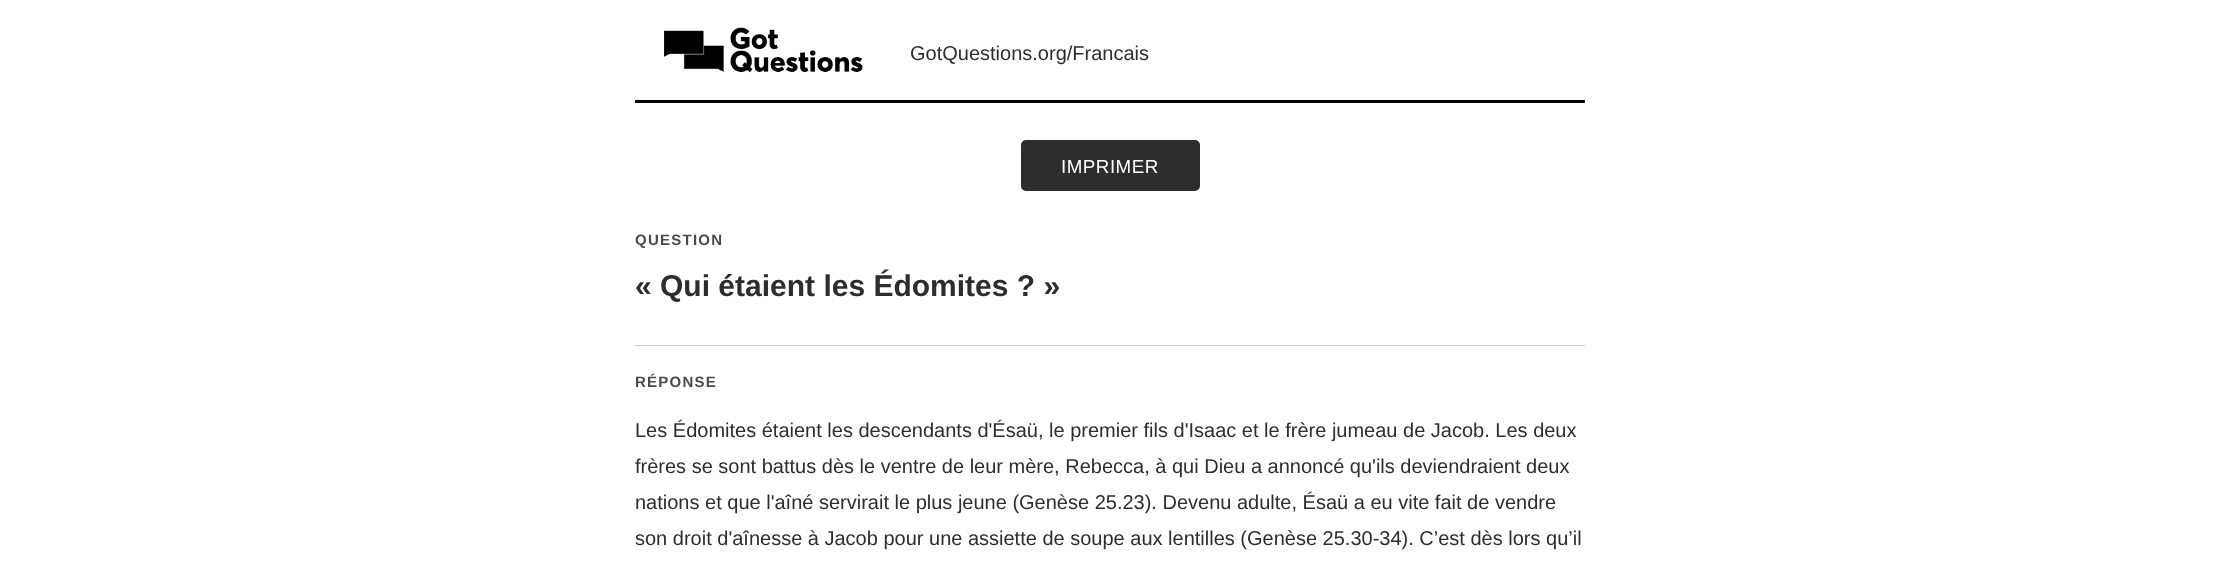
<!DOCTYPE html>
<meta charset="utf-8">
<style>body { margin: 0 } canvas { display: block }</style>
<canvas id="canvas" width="2219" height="561"></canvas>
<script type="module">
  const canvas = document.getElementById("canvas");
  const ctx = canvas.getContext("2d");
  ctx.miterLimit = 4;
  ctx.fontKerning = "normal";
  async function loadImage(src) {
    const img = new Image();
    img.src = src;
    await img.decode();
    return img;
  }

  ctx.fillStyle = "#ffffff";
  ctx.fillRect(0, 0, 2219, 561);
  ctx.fillStyle = "#000000";
  ctx.fillRect(635, 100, 950, 3);
  ctx.drawImage(await loadImage("img1.png"), 664, 27, 199, 46);
  ctx.font = "20px Liberation Sans";
  ctx.fillStyle = "#2d2d2d";
  ctx.fillText("GotQuestions.org/Francais", 910, 60);
  ctx.beginPath();
  ctx.roundRect(1022.5, 141.5, 176, 48, 3.5);
  ctx.fill();
  ctx.strokeStyle = "#2d2d2d";
  ctx.lineWidth = 3;
  ctx.stroke();
  ctx.letterSpacing = "0.5px";
  ctx.font = "18.75px Liberation Sans";
  ctx.fillStyle = "#ffffff";
  ctx.fillText("IMPRIMER", 1061, 173);
  ctx.letterSpacing = "1.25px";
  ctx.font = "bold 15px Liberation Sans";
  ctx.fillStyle = "#4a4a4a";
  ctx.fillText("QUESTION", 635, 245);
  ctx.letterSpacing = "0px";
  ctx.font = "bold 30px Liberation Sans";
  ctx.fillStyle = "#2d2d2d";
  ctx.fillText("« Qui étaient les Édomites ? »", 635, 296);
  ctx.fillStyle = "#cccccc";
  ctx.fillRect(635, 345, 950, 1);
  ctx.letterSpacing = "1.25px";
  ctx.font = "bold 15px Liberation Sans";
  ctx.fillStyle = "#4a4a4a";
  ctx.fillText("RÉPONSE", 635, 387);
  ctx.letterSpacing = "0px";
  ctx.font = "20px Liberation Sans";
  ctx.fillStyle = "#2d2d2d";
  ctx.fillText("Les Édomites étaient les descendants d'Ésaü, le premier fils d'Isaac et le frère jumeau de Jacob. Les deux", 635, 437);
  ctx.fillText("frères se sont battus dès le ventre de leur mère, Rebecca, à qui Dieu a annoncé qu'ils deviendraient deux", 635, 473);
  ctx.fillText("nations et que l'aîné servirait le plus jeune (Genèse 25.23). Devenu adulte, Ésaü a eu vite fait de vendre", 635, 509);
  ctx.fillText("son droit d'aînesse à Jacob pour une assiette de soupe aux lentilles (Genèse 25.30-34). C’est dès lors qu’il", 635, 545);
</script>
